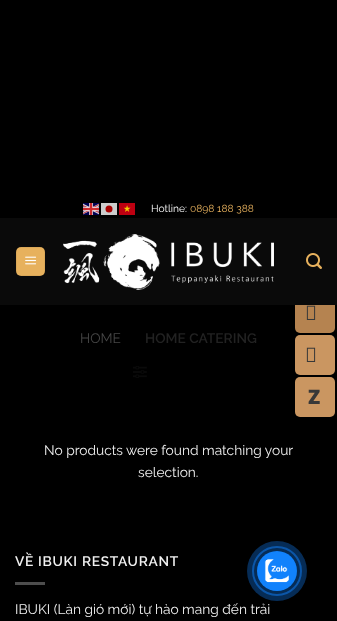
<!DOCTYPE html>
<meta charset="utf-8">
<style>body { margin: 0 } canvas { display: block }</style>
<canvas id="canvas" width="337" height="621"></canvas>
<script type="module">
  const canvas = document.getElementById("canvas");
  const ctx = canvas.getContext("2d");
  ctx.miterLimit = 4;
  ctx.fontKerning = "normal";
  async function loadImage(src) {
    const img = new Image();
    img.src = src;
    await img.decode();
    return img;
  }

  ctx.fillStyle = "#000000";
  ctx.fillRect(0, 0, 337, 621);
  ctx.fillStyle = "#b58350";
  ctx.beginPath();
  ctx.roundRect(295, 293, 40, 40, 5);
  ctx.fill();
  ctx.fillStyle = "#0a0a0a";
  ctx.fillRect(0, 218, 337, 87);
  ctx.drawImage(await loadImage("img1.png"), 83, 203, 16, 12);
  ctx.fillStyle = "#cccccc";
  ctx.fillRect(101, 203, 16, 12);
  ctx.drawImage(await loadImage("img2.png"), 119, 203, 16, 12);
  ctx.fillStyle = "#a90000";
  ctx.beginPath();
  ctx.arc(109, 209, 3.5, 0, Math.PI * 2);
  ctx.fill();
  ctx.font = "10.25px Raleway";
  ctx.fillStyle = "#ffffff";
  ctx.fillText("Hotline:", 151, 212);
  ctx.fillStyle = "#e7b15d";
  ctx.fillText("0898 188 388", 190, 212);
  ctx.beginPath();
  ctx.roundRect(16, 247, 29, 29, 5);
  ctx.fill();
  ctx.strokeStyle = "rgba(0, 0, 0, 0.05)";
  ctx.strokeRect(16.5, 247.5, 28, 28);
  ctx.drawImage(await loadImage("img3.png"), 25, 256, 12, 9);
  ctx.drawImage(await loadImage("img4.png"), 63, 234, 211, 56);
  ctx.drawImage(await loadImage("img5.png"), 306, 253, 16, 16);
  ctx.font = "13.75px Raleway";
  ctx.fillStyle = "#474747";
  ctx.fillText("HOME", 80, 343);
  ctx.font = "600 13.75px Raleway";
  ctx.fillStyle = "#222222";
  ctx.fillText("HOME CATERING", 145, 343);
  ctx.drawImage(await loadImage("img6.png"), 133, 366, 14, 12);
  ctx.font = "13.75px Raleway";
  ctx.fillStyle = "#f1f1f1";
  ctx.fillText("No products were found matching your", 44, 455);
  ctx.fillText("selection.", 138, 477);
  ctx.letterSpacing = "0.7px";
  ctx.font = "600 13.75px Raleway";
  ctx.fillText("VỀ IBUKI RESTAURANT", 15, 566);
  ctx.fillStyle = "#4d4d4d";
  ctx.fillRect(15, 582, 30, 3);
  ctx.letterSpacing = "0px";
  ctx.font = "13.75px Raleway";
  ctx.fillStyle = "#f1f1f1";
  ctx.fillText("IBUKI (Làn gió mới) tự hào mang đến trải", 15, 614);
  ctx.drawImage(await loadImage("img7.png"), 306, 305, 10, 15);
  ctx.fillStyle = "#ca9661";
  ctx.beginPath();
  ctx.roundRect(295, 335, 40, 40, 5);
  ctx.fill();
  ctx.drawImage(await loadImage("img8.png"), 306, 347, 10, 15);
  ctx.beginPath();
  ctx.roundRect(295, 377, 40, 40, 5);
  ctx.fill();
  ctx.font = "900 20px Noto Sans";
  ctx.fillStyle = "#383838";
  ctx.fillText("Z", 308, 404);
  ctx.beginPath();
  ctx.arc(277, 571, 24, 0, Math.PI * 2);
  ctx.strokeStyle = "#09417e";
  ctx.lineWidth = 2;
  ctx.stroke();
  ctx.fillStyle = "rgba(17, 130, 252, 0.34)";
  ctx.beginPath();
  ctx.arc(277, 571, 30, 0, Math.PI * 2);
  ctx.fill();
  ctx.fillStyle = "#1182fc";
  ctx.beginPath();
  ctx.arc(277, 571, 20, 0, Math.PI * 2);
  ctx.fill();
  ctx.drawImage(await loadImage("img9.png"), 264, 559, 25, 24);
</script>
